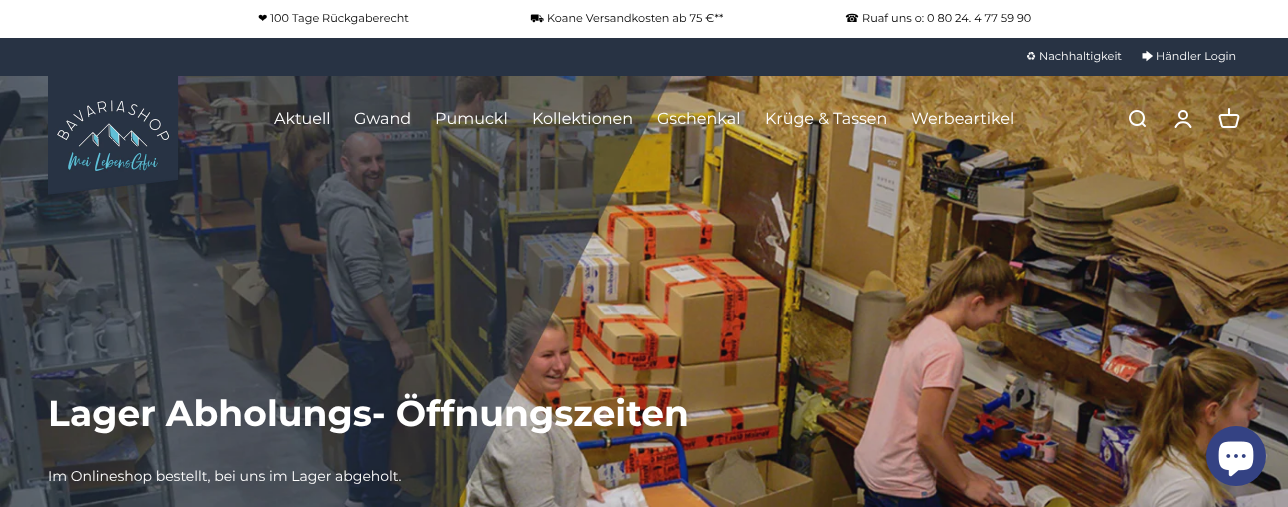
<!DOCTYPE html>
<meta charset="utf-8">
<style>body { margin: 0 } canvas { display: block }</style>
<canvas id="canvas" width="1288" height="507"></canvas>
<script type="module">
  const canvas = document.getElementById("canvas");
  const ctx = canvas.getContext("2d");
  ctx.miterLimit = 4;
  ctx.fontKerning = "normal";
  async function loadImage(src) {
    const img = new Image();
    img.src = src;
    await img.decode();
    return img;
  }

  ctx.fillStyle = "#ffffff";
  ctx.fillRect(0, 0, 1288, 507);
  ctx.font = "11.25px DejaVu Sans";
  ctx.fillStyle = "#000000";
  ctx.fillText("❤", 258, 22);
  ctx.font = "11.25px Montserrat";
  ctx.fillText("100 Tage Rückgaberecht", 270, 22);
  ctx.font = "11.25px STIX Two Math";
  ctx.fillText("⛟", 530, 22);
  ctx.font = "11.25px Montserrat";
  ctx.fillText("Koane Versandkosten ab 75 €**", 547, 22);
  ctx.font = "11.25px DejaVu Sans";
  ctx.fillText("☎", 845, 22);
  ctx.font = "11.25px Montserrat";
  ctx.fillText("Ruaf uns o: 0 80 24. 4 77 59 90", 862, 22);
  ctx.fillStyle = "#283344";
  ctx.fillRect(0, 38, 1288, 38);
  ctx.font = "11.25px DejaVu Sans";
  ctx.fillStyle = "#ffffff";
  ctx.fillText("♻", 1026, 60);
  ctx.font = "11.25px Montserrat";
  ctx.fillText("Nachhaltigkeit", 1039, 60);
  ctx.font = "11.25px 'Noto Sans Symbols 2'";
  ctx.fillText("🡆", 1142, 60);
  ctx.font = "11.25px Montserrat";
  ctx.fillText("Händler Login", 1156, 60);
  ctx.drawImage(await loadImage("img4.png"), 0, 76, 1288, 431);
  ctx.drawImage(await loadImage("img1.png"), 48, 76, 131, 120);
  ctx.font = "16px Montserrat";
  ctx.fillText("Aktuell", 274, 124);
  ctx.fillText("Gwand", 354, 124);
  ctx.fillText("Pumuckl", 435, 124);
  ctx.fillText("Kollektionen", 532, 124);
  ctx.fillText("Gschenkal", 657, 124);
  ctx.fillText("Krüge & Tassen", 765, 124);
  ctx.fillText("Werbeartikel", 911, 124);
  ctx.drawImage(await loadImage("img2.png"), 1129, 110, 17, 17);
  ctx.beginPath();
  ctx.arc(1183, 115, 4, 0, Math.PI * 2);
  ctx.strokeStyle = "#ffffff";
  ctx.lineWidth = 2;
  ctx.stroke();
  ctx.beginPath();
  ctx.moveTo(1175.5, 127);
  ctx.bezierCurveTo(1178.5, 120.5, 1187.5, 120.5, 1190.5, 127);
  ctx.lineCap = "round";
  ctx.stroke();
  ctx.drawImage(await loadImage("img3.png"), 1218, 108, 22, 20);
  ctx.font = "bold 36px Montserrat";
  ctx.fillText("Lager Abholungs- Öffnungszeiten", 48, 426);
  ctx.font = "14px Montserrat";
  ctx.fillText("Im Onlineshop bestellt, bei uns im Lager abgeholt.", 48, 481);
  ctx.fillStyle = "#344283";
  ctx.beginPath();
  ctx.arc(1236, 456, 30, 0, Math.PI * 2);
  ctx.fill();
  ctx.drawImage(await loadImage("img5.png"), 1218, 441, 36, 36);
</script>
